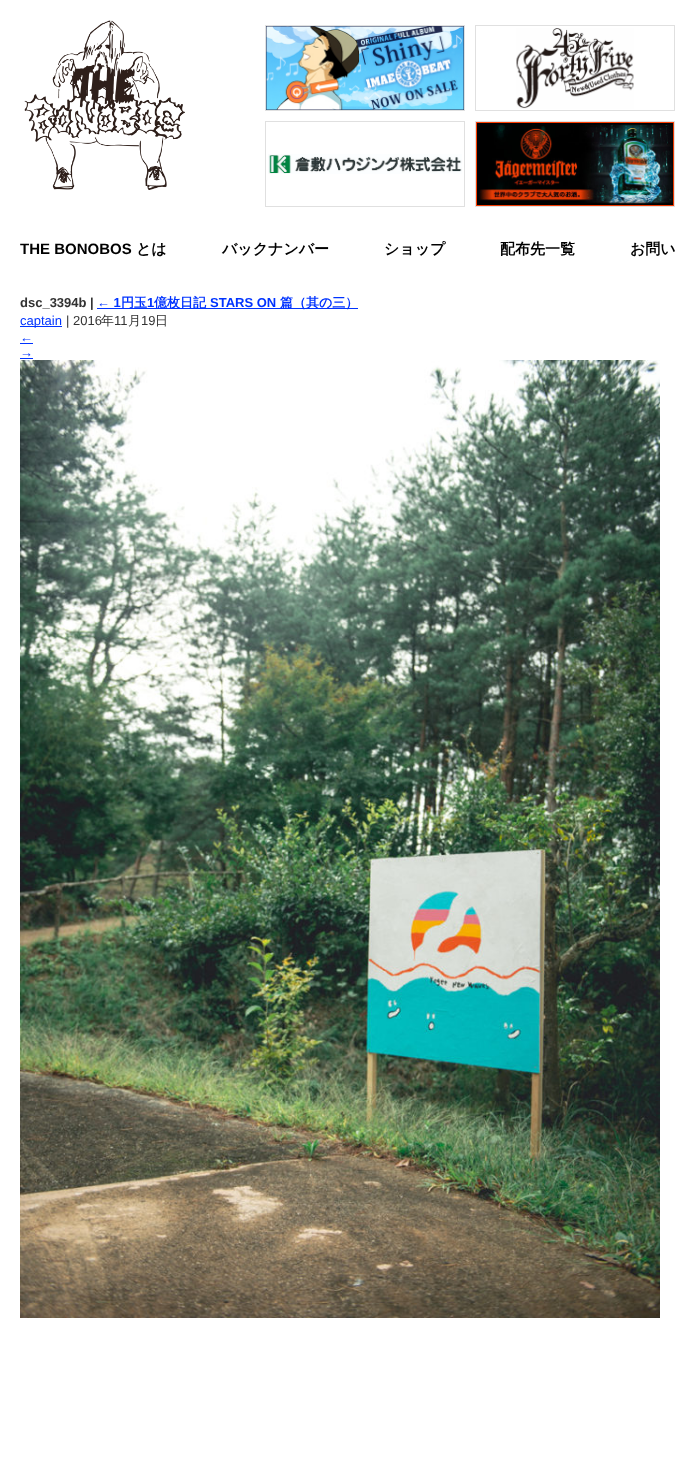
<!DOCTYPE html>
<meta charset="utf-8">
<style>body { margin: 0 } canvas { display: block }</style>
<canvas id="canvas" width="682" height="1461"></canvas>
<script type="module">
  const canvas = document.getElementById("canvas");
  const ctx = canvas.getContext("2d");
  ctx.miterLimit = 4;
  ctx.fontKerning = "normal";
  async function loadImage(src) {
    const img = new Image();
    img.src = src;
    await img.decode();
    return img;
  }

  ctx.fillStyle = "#ffffff";
  ctx.fillRect(0, 0, 682, 1461);
  ctx.drawImage(await loadImage("img1.png"), 24, 20, 161, 170);
  ctx.strokeStyle = "#e0e0e0";
  ctx.strokeRect(265.5, 25.5, 199, 85);
  ctx.drawImage(await loadImage("img2.png"), 266, 26, 198, 84);
  ctx.strokeRect(265.5, 121.5, 199, 85);
  ctx.drawImage(await loadImage("img3.png"), 268, 154, 194, 20);
  ctx.strokeRect(475.5, 25.5, 199, 85);
  ctx.drawImage(await loadImage("img4.png"), 516, 28, 118, 81);
  ctx.strokeRect(475.5, 121.5, 199, 85);
  ctx.drawImage(await loadImage("img5.png"), 476, 122, 198, 84);
  ctx.font = "bold 15px Liberation Sans";
  ctx.fillStyle = "#000000";
  ctx.fillText("THE BONOBOS", 20, 254);
  ctx.font = "bold 15px WenQuanYi Zen Hei";
  ctx.fillText("とは", 136, 254);
  ctx.fillText("バックナンバー", 222, 254);
  ctx.fillText("ショップ", 384, 254);
  ctx.fillText("配布先一覧", 500, 254);
  ctx.fillText("お問い", 630, 254);
  ctx.font = "bold 13px Liberation Sans";
  ctx.fillStyle = "#333333";
  ctx.fillText("dsc_3394b |", 20, 307);
  ctx.fillStyle = "#0033ff";
  ctx.fillText("← 1", 97, 307);
  ctx.fillRect(97, 308, 261, 1);
  ctx.font = "bold 13px WenQuanYi Zen Hei";
  ctx.fillText("円玉", 121, 307);
  ctx.font = "bold 13px Liberation Sans";
  ctx.fillText("1", 147, 307);
  ctx.font = "bold 13px WenQuanYi Zen Hei";
  ctx.fillText("億枚日記", 154, 307);
  ctx.font = "bold 13px Liberation Sans";
  ctx.fillText("STARS ON", 210, 307);
  ctx.font = "bold 13px WenQuanYi Zen Hei";
  ctx.fillText("篇（其の三）", 280, 307);
  ctx.fillRect(20, 326, 42, 1);
  ctx.font = "13px Liberation Sans";
  ctx.fillText("captain", 20, 325);
  ctx.fillStyle = "#333333";
  ctx.fillText("| 2016", 66, 325);
  ctx.font = "500 13px WenQuanYi Zen Hei";
  ctx.fillText("年", 101, 325);
  ctx.font = "13px Liberation Sans";
  ctx.fillText("11", 114, 325);
  ctx.font = "500 13px WenQuanYi Zen Hei";
  ctx.fillText("月", 128, 325);
  ctx.font = "13px Liberation Sans";
  ctx.fillText("19", 141, 325);
  ctx.font = "500 13px WenQuanYi Zen Hei";
  ctx.fillText("日", 155, 325);
  ctx.font = "13px Liberation Sans";
  ctx.fillStyle = "#0033ff";
  ctx.fillText("←", 20, 342);
  ctx.fillRect(20, 343, 13, 1);
  ctx.fillText("→", 20, 357);
  ctx.fillRect(20, 358, 13, 1);
  ctx.drawImage(await loadImage("img6.png"), 20, 360, 640, 958);
</script>
